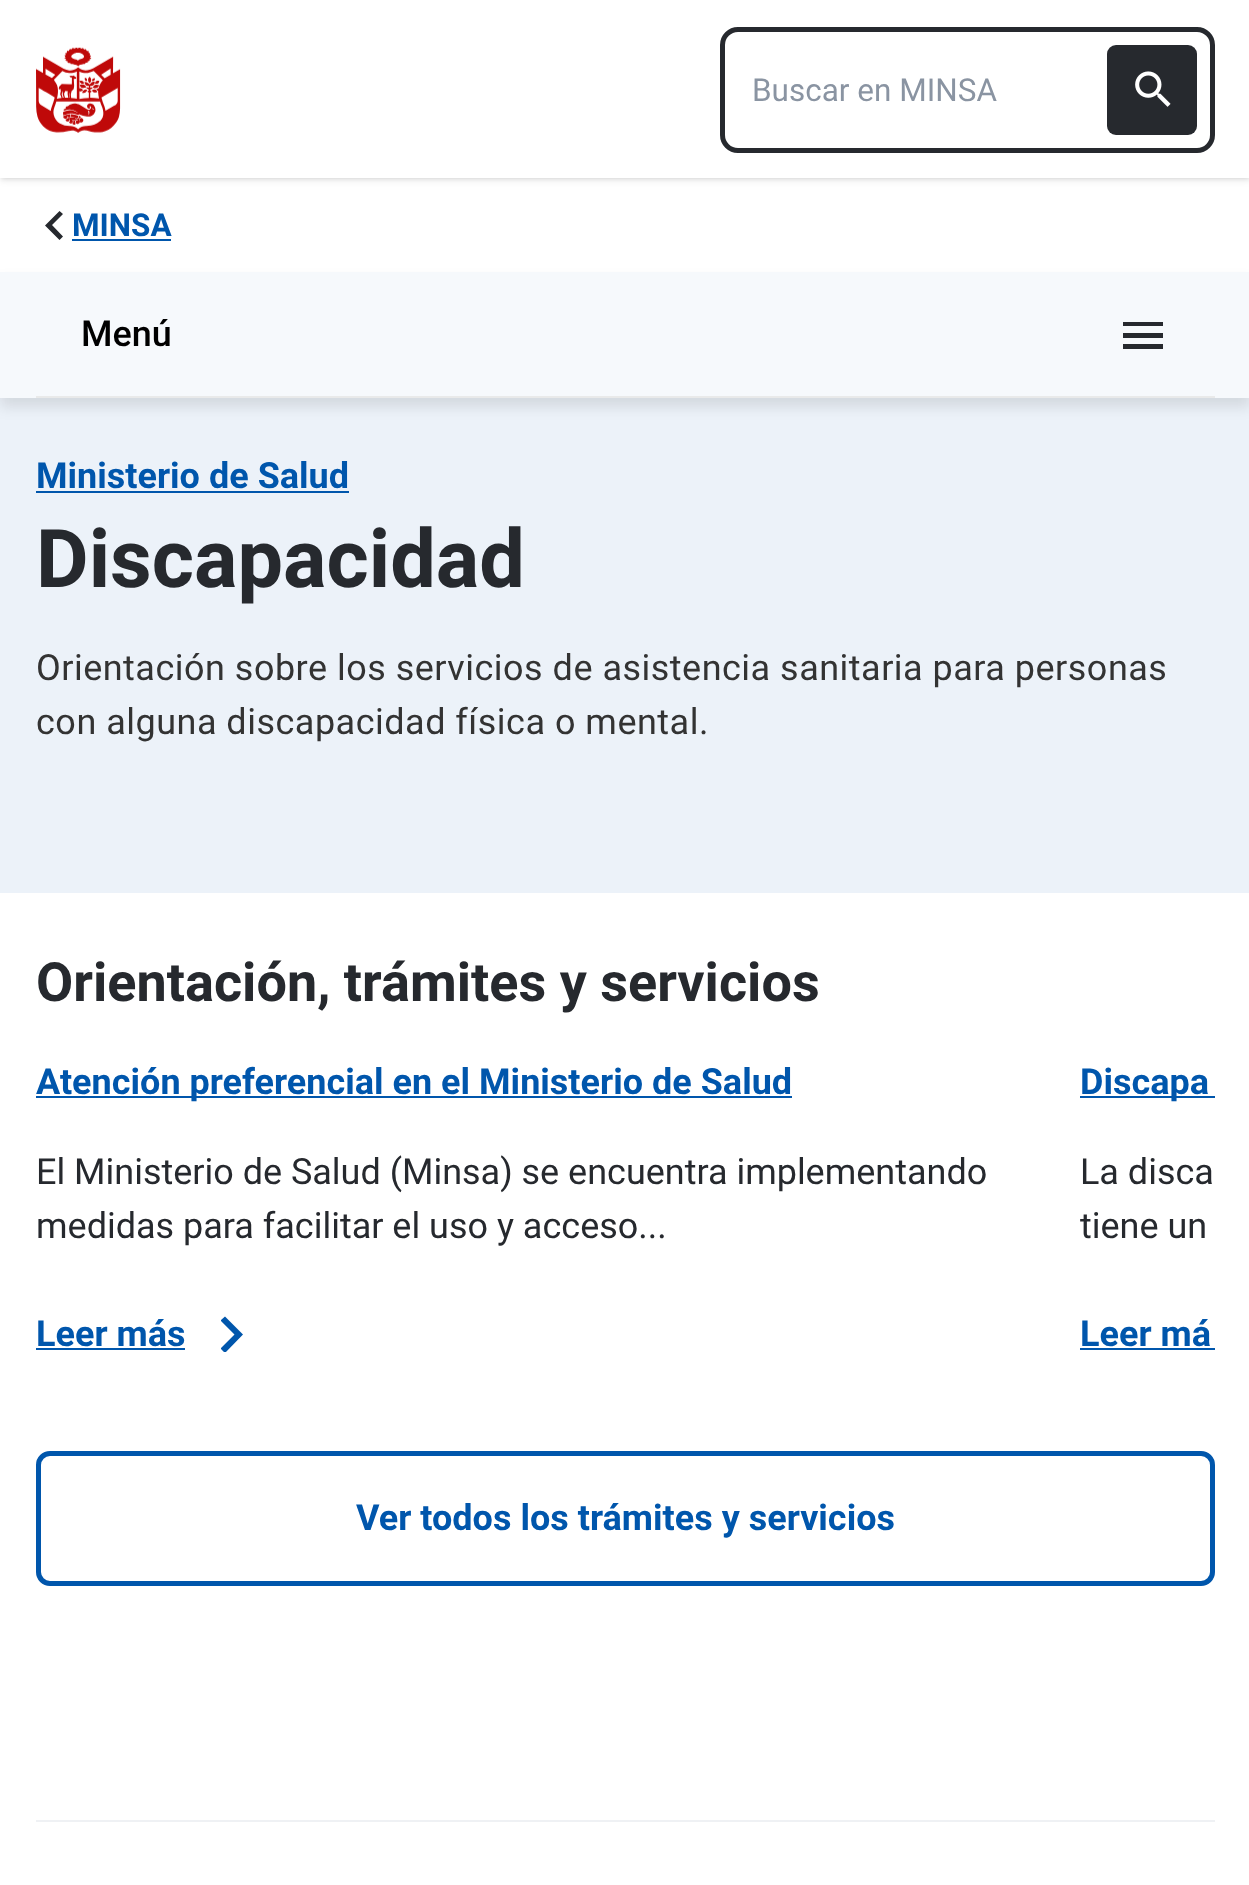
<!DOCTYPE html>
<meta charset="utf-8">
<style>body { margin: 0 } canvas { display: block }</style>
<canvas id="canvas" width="1249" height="1885"></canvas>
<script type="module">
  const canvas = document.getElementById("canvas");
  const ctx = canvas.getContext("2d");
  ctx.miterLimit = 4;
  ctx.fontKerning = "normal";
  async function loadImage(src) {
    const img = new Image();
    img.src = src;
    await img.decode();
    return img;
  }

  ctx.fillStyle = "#ffffff";
  ctx.fillRect(0, 0, 1249, 1885);
  ctx.fillStyle = "rgba(0, 0, 0, 0.1)";
  ctx.filter = "blur(2px)";
  ctx.beginPath();
  ctx.rect(2, 5, 1247, 173);
  ctx.fill();
  ctx.filter = "none";
  ctx.filter = "blur(3.5px)";
  ctx.beginPath();
  ctx.rect(0, 2, 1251, 178);
  ctx.fill();
  ctx.filter = "none";
  ctx.fillStyle = "#ffffff";
  ctx.fillRect(0, 0, 1249, 178);
  ctx.drawImage(await loadImage("img1.png"), 36, 47, 85, 86);
  ctx.beginPath();
  ctx.roundRect(722.5, 29.5, 490, 121, 15.5);
  ctx.strokeStyle = "#26292e";
  ctx.lineWidth = 5;
  ctx.stroke();
  ctx.font = "31.5px Roboto";
  ctx.fillStyle = "#8a94a2";
  ctx.fillText("Buscar en MINSA", 752, 101);
  ctx.fillStyle = "#26292e";
  ctx.beginPath();
  ctx.roundRect(1107, 45, 90, 90, 9);
  ctx.fill();
  ctx.drawImage(await loadImage("img2.png"), 1135, 71, 36, 36);
  ctx.beginPath();
  ctx.moveTo(63, 214);
  ctx.lineTo(52, 225);
  ctx.lineTo(63, 236.5);
  ctx.lineTo(59.5, 240);
  ctx.lineTo(45, 225.5);
  ctx.lineTo(59.5, 211);
  ctx.closePath();
  ctx.fill();
  ctx.font = "bold 31.5px Roboto";
  ctx.fillStyle = "#0056ac";
  ctx.fillText("MINSA", 72, 236);
  ctx.fillRect(72, 239, 99, 2);
  ctx.fillStyle = "#ecf2f9";
  ctx.fillRect(0, 398, 1249, 495);
  ctx.fillStyle = "rgba(0, 0, 0, 0.1)";
  ctx.filter = "blur(7px)";
  ctx.beginPath();
  ctx.rect(0, 281, 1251, 126);
  ctx.fill();
  ctx.filter = "none";
  ctx.fillStyle = "#f6f9fc";
  ctx.fillRect(0, 272, 1249, 126);
  ctx.fillStyle = "#e9eaea";
  ctx.fillRect(36, 396, 1179, 2);
  ctx.font = "500 36px Roboto";
  ctx.fillStyle = "#000000";
  ctx.fillText("Menú", 81, 346);
  ctx.fillStyle = "#26292e";
  ctx.beginPath();
  ctx.moveTo(1123, 349);
  ctx.lineTo(1163, 349);
  ctx.lineTo(1163, 344);
  ctx.lineTo(1123, 344);
  ctx.closePath();
  ctx.moveTo(1123, 338);
  ctx.lineTo(1163, 338);
  ctx.lineTo(1163, 333);
  ctx.lineTo(1123, 333);
  ctx.closePath();
  ctx.moveTo(1123, 322);
  ctx.lineTo(1123, 326);
  ctx.lineTo(1163, 326);
  ctx.lineTo(1163, 322);
  ctx.closePath();
  ctx.fill();
  ctx.font = "bold 36px Roboto";
  ctx.fillStyle = "#0056ac";
  ctx.fillText("Ministerio de Salud", 36, 488);
  ctx.fillRect(36, 491, 313, 2);
  ctx.font = "bold 81px Roboto";
  ctx.fillStyle = "#26292e";
  ctx.fillText("Discapacidad", 36, 587);
  ctx.letterSpacing = "0.5px";
  ctx.font = "36px Roboto";
  ctx.fillStyle = "#333333";
  ctx.fillText("Orientación sobre los servicios de asistencia sanitaria para personas", 36, 680);
  ctx.fillText("con alguna discapacidad física o mental.", 36, 734);
  ctx.letterSpacing = "0px";
  ctx.font = "bold 54px Roboto";
  ctx.fillStyle = "#26292e";
  ctx.fillText("Orientación, trámites y servicios", 36, 1001);
  ctx.fillStyle = "#0056ac";
  ctx.fillRect(36, 1096, 756, 2);
  ctx.font = "bold 36px Roboto";
  ctx.fillText("Atención preferencial en el Ministerio de Salud", 36, 1094);
  ctx.font = "36px Roboto";
  ctx.fillStyle = "#26292e";
  ctx.fillText("El Ministerio de Salud (Minsa) se encuentra implementando", 36, 1184);
  ctx.fillText("medidas para facilitar el uso y acceso...", 36, 1238);
  ctx.font = "bold 36px Roboto";
  ctx.fillStyle = "#0056ac";
  ctx.fillText("Leer más", 36, 1346);
  ctx.fillRect(36, 1348, 149, 2);
  ctx.save();
  ctx.beginPath();
  ctx.rect(221, 1316, 24, 36);
  ctx.clip();
  ctx.beginPath();
  ctx.moveTo(220.5, 1348.5);
  ctx.lineTo(234.5, 1334.5);
  ctx.lineTo(220.5, 1320.5);
  ctx.lineTo(225, 1316.5);
  ctx.lineTo(243, 1334.5);
  ctx.lineTo(225, 1353);
  ctx.closePath();
  ctx.fill();
  ctx.restore();
  ctx.fillRect(1080, 1096, 135, 2);
  ctx.fillText("Discapa", 1080, 1094);
  ctx.font = "36px Roboto";
  ctx.fillStyle = "#26292e";
  ctx.fillText("La disca", 1080, 1184);
  ctx.fillText("tiene un", 1080, 1238);
  ctx.font = "bold 36px Roboto";
  ctx.fillStyle = "#0056ac";
  ctx.fillText("Leer má", 1080, 1346);
  ctx.fillRect(1080, 1348, 135, 2);
  ctx.beginPath();
  ctx.roundRect(38.5, 1453.5, 1174, 130, 11.5);
  ctx.strokeStyle = "#0056ac";
  ctx.stroke();
  ctx.fillText("Ver todos los trámites y servicios", 356, 1530);
  ctx.fillStyle = "#eff1f4";
  ctx.fillRect(36, 1820, 1179, 2);
</script>
